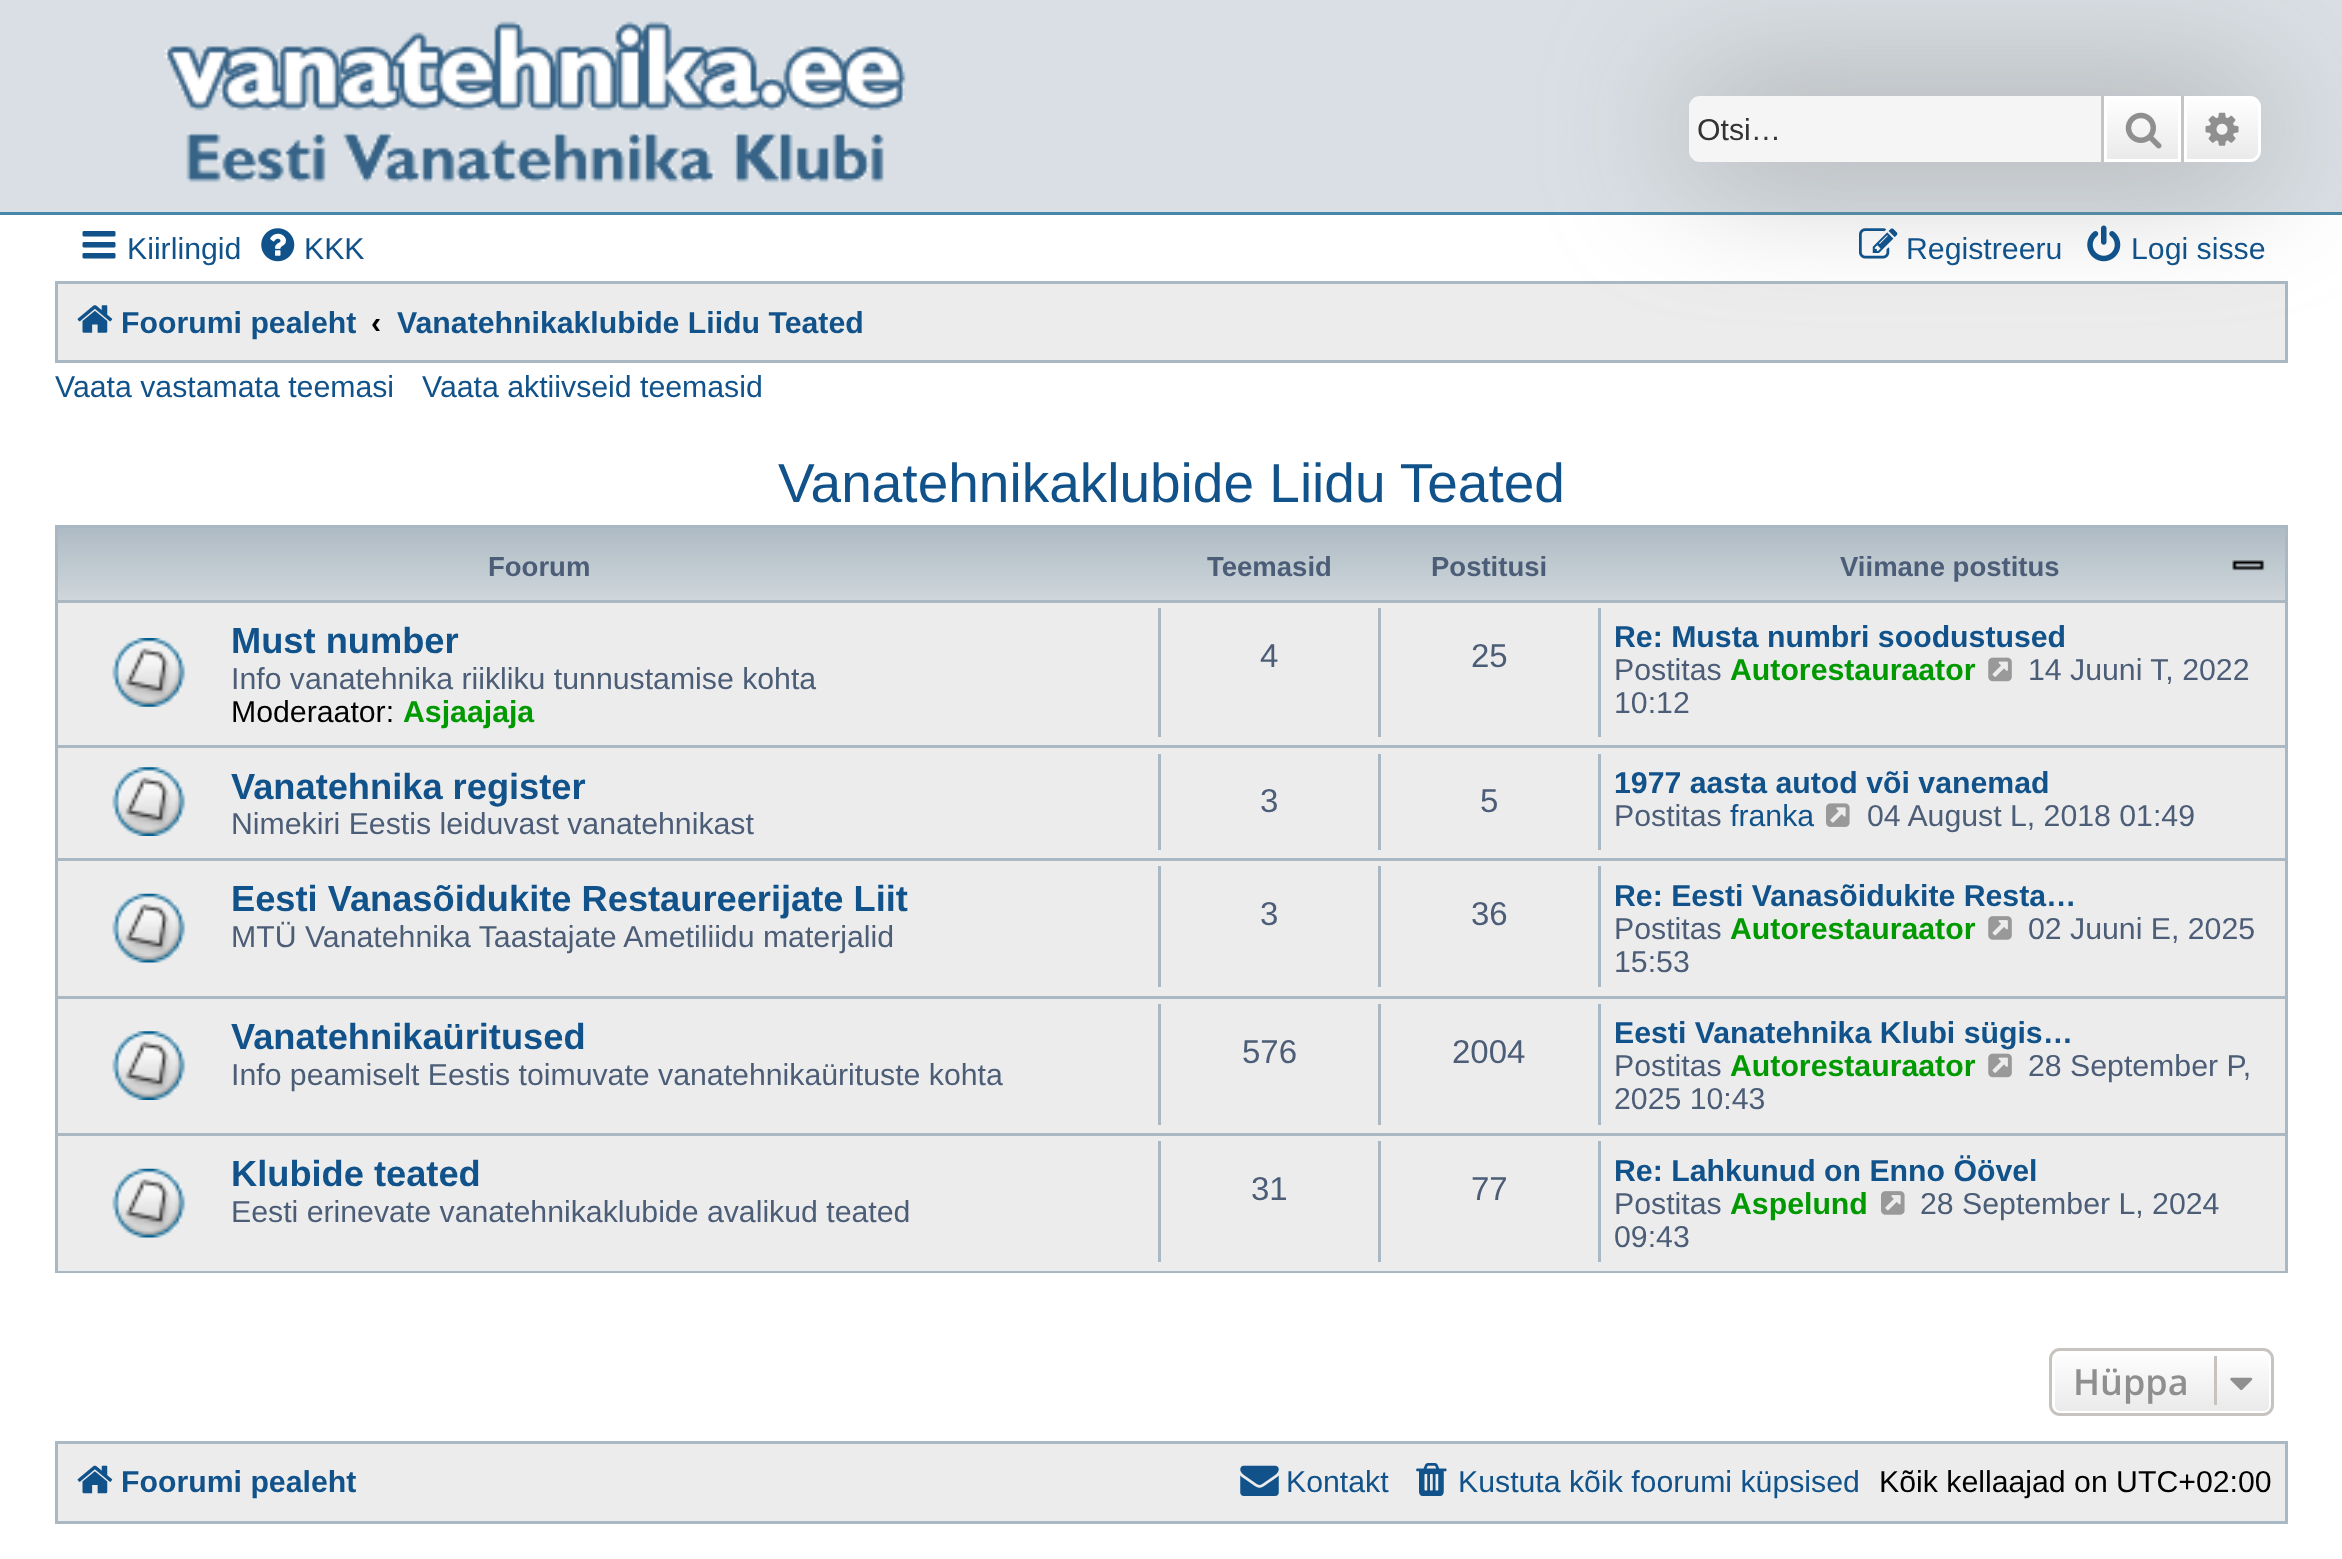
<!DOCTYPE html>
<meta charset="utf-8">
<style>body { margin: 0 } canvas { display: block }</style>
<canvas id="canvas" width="2342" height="1559"></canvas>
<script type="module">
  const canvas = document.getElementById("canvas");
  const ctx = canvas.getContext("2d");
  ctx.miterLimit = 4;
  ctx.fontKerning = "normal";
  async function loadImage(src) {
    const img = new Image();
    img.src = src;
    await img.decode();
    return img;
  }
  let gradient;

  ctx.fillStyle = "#ffffff";
  ctx.fillRect(0, 0, 2342, 1559);
  ctx.fillStyle = "#d9dfe4";
  ctx.fillRect(0, 0, 2342, 212);
  ctx.fillStyle = "#4787a7";
  ctx.fillRect(0, 212, 2342, 3);
  ctx.drawImage(await loadImage("img1.png"), 164, 21, 742, 162);
  ctx.fillStyle = "#ececec";
  ctx.beginPath();
  ctx.rect(56.5, 282.5, 2230, 79);
  ctx.fill();
  ctx.strokeStyle = "#a9b8c2";
  ctx.lineWidth = 3;
  ctx.stroke();
  ctx.fillStyle = "#999999";
  ctx.filter = "blur(69px)";
  ctx.beginPath();
  ctx.roundRect(1689, 96, 572, 66, 11);
  ctx.fill();
  ctx.filter = "none";
  ctx.fillStyle = "#f5f5f5";
  ctx.beginPath();
  ctx.roundRect(1689, 96, 412, 66, [11, 0, 0, 11]);
  ctx.fill();
  ctx.font = "30.25px Liberation Sans";
  ctx.fillStyle = "#333333";
  ctx.fillText("Otsi…", 1697, 140);
  gradient = ctx.createLinearGradient(2142, 96, 2142, 162);
  gradient.addColorStop(0, "#ffffff");
  gradient.addColorStop(1, "#e9e9e9");
  ctx.fillStyle = gradient;
  ctx.fillRect(2107, 99, 71, 60);
  ctx.strokeStyle = "#ffffff";
  ctx.strokeRect(2105.5, 97.5, 74, 63);
  ctx.fillStyle = "#c7c3bf";
  ctx.fillRect(2181, 96, 3, 66);
  ctx.fillRect(2101, 96, 3, 66);
  ctx.drawImage(await loadImage("img2.png"), 2125, 112, 37, 37);
  gradient = ctx.createLinearGradient(2222, 96, 2222, 162);
  gradient.addColorStop(0, "#ffffff");
  gradient.addColorStop(1, "#e9e9e9");
  ctx.fillStyle = gradient;
  ctx.beginPath();
  ctx.roundRect(2185.5, 97.5, 74, 63, [0, 9.5, 9.5, 0]);
  ctx.fill();
  ctx.stroke();
  ctx.drawImage(await loadImage("img3.png"), 2205, 112, 34, 34);
  ctx.drawImage(await loadImage("img4.png"), 82, 231, 34, 28);
  ctx.fillStyle = "#105289";
  ctx.fillText("Kiirlingid", 127, 259);
  ctx.drawImage(await loadImage("img5.png"), 261, 228, 34, 34);
  ctx.fillText("KKK", 304, 259);
  ctx.drawImage(await loadImage("img6.png"), 1859, 228, 39, 31);
  ctx.fillText("Registreeru", 1906, 259);
  ctx.drawImage(await loadImage("img7.png"), 2087, 225, 34, 37);
  ctx.fillText("Logi sisse", 2131, 259);
  ctx.drawImage(await loadImage("img8.png"), 77, 305, 36, 28);
  ctx.font = "bold 30.25px Liberation Sans";
  ctx.fillText("Foorumi pealeht", 121, 333);
  ctx.fillStyle = "#000000";
  ctx.fillText("‹", 371, 333);
  ctx.fillStyle = "#105289";
  ctx.fillText("Vanatehnikaklubide Liidu Teated", 397, 333);
  ctx.font = "30.25px Liberation Sans";
  ctx.fillText("Vaata vastamata teemasi", 55, 397);
  ctx.fillText("Vaata aktiivseid teemasid", 422, 397);
  ctx.font = "55px Liberation Sans";
  ctx.fillText("Vanatehnikaklubide Liidu Teated", 778, 502);
  ctx.drawImage(await loadImage("img9.png"), 58, 528, 2227, 72);
  ctx.strokeStyle = "#a9b8c2";
  ctx.strokeRect(56.5, 526.5, 2230, 745);
  ctx.font = "bold 27.5px Liberation Sans";
  ctx.fillStyle = "#4c5d77";
  ctx.fillText("Foorum", 488, 576);
  ctx.fillText("Teemasid", 1207, 576);
  ctx.fillText("Postitusi", 1431, 576);
  ctx.fillText("Viimane postitus", 1840, 576);
  ctx.drawImage(await loadImage("img10.png"), 2232, 560, 33, 11);
  ctx.fillStyle = "#ececec";
  ctx.fillRect(58, 603, 2227, 668);
  ctx.fillStyle = "#a9b8c2";
  ctx.fillRect(58, 600, 2227, 3);
  ctx.drawImage(await loadImage("img11.png"), 112, 638, 74, 69);
  ctx.font = "bold 36.25px Liberation Sans";
  ctx.fillStyle = "#105289";
  ctx.fillText("Must number", 231, 653);
  ctx.font = "30.25px Liberation Sans";
  ctx.fillStyle = "#4c5d77";
  ctx.fillText("Info vanatehnika riikliku tunnustamise kohta", 231, 689);
  ctx.fillStyle = "#000000";
  ctx.fillText("Moderaator:", 231, 722);
  ctx.font = "bold 30.25px Liberation Sans";
  ctx.fillStyle = "#009900";
  ctx.fillText("Asjaajaja", 403, 722);
  ctx.fillStyle = "#a9b8c2";
  ctx.fillRect(1158, 608, 3, 129);
  ctx.font = "33px Liberation Sans";
  ctx.fillStyle = "#4c5d77";
  ctx.fillText("4", 1260, 667);
  ctx.fillStyle = "#a9b8c2";
  ctx.fillRect(1378, 608, 3, 129);
  ctx.fillStyle = "#4c5d77";
  ctx.fillText("25", 1471, 667);
  ctx.fillStyle = "#a9b8c2";
  ctx.fillRect(1598, 608, 3, 129);
  ctx.font = "bold 30.25px Liberation Sans";
  ctx.fillStyle = "#105289";
  ctx.fillText("Re: Musta numbri soodustused", 1614, 647);
  ctx.font = "30.25px Liberation Sans";
  ctx.fillStyle = "#4c5d77";
  ctx.fillText("Postitas", 1614, 680);
  ctx.font = "bold 30.25px Liberation Sans";
  ctx.fillStyle = "#009900";
  ctx.fillText("Autorestauraator", 1730, 680);
  ctx.drawImage(await loadImage("img12.png"), 1988, 657, 24, 25);
  ctx.font = "30.25px Liberation Sans";
  ctx.fillStyle = "#4c5d77";
  ctx.fillText("14 Juuni T, 2022", 2028, 680);
  ctx.fillText("10:12", 1614, 713);
  ctx.fillStyle = "#a9b8c2";
  ctx.fillRect(58, 745, 2227, 3);
  ctx.drawImage(await loadImage("img13.png"), 112, 767, 74, 69);
  ctx.font = "bold 36.25px Liberation Sans";
  ctx.fillStyle = "#105289";
  ctx.fillText("Vanatehnika register", 231, 799);
  ctx.font = "30.25px Liberation Sans";
  ctx.fillStyle = "#4c5d77";
  ctx.fillText("Nimekiri Eestis leiduvast vanatehnikast", 231, 834);
  ctx.fillStyle = "#a9b8c2";
  ctx.fillRect(1158, 754, 3, 96);
  ctx.font = "33px Liberation Sans";
  ctx.fillStyle = "#4c5d77";
  ctx.fillText("3", 1260, 812);
  ctx.fillStyle = "#a9b8c2";
  ctx.fillRect(1378, 754, 3, 96);
  ctx.fillStyle = "#4c5d77";
  ctx.fillText("5", 1480, 812);
  ctx.fillStyle = "#a9b8c2";
  ctx.fillRect(1598, 754, 3, 96);
  ctx.font = "bold 30.25px Liberation Sans";
  ctx.fillStyle = "#105289";
  ctx.fillText("1977 aasta autod või vanemad", 1614, 793);
  ctx.font = "30.25px Liberation Sans";
  ctx.fillStyle = "#4c5d77";
  ctx.fillText("Postitas", 1614, 826);
  ctx.fillStyle = "#105289";
  ctx.fillText("franka", 1730, 826);
  ctx.drawImage(await loadImage("img14.png"), 1826, 803, 24, 24);
  ctx.fillStyle = "#4c5d77";
  ctx.fillText("04 August L, 2018 01:49", 1867, 826);
  ctx.fillStyle = "#a9b8c2";
  ctx.fillRect(58, 858, 2227, 3);
  ctx.drawImage(await loadImage("img15.png"), 112, 893, 74, 70);
  ctx.font = "bold 36.25px Liberation Sans";
  ctx.fillStyle = "#105289";
  ctx.fillText("Eesti Vanasõidukite Restaureerijate Liit", 231, 911);
  ctx.font = "30.25px Liberation Sans";
  ctx.fillStyle = "#4c5d77";
  ctx.fillText("MTÜ Vanatehnika Taastajate Ametiliidu materjalid", 231, 947);
  ctx.fillStyle = "#a9b8c2";
  ctx.fillRect(1158, 866, 3, 121);
  ctx.font = "33px Liberation Sans";
  ctx.fillStyle = "#4c5d77";
  ctx.fillText("3", 1260, 925);
  ctx.fillStyle = "#a9b8c2";
  ctx.fillRect(1378, 866, 3, 121);
  ctx.fillStyle = "#4c5d77";
  ctx.fillText("36", 1471, 925);
  ctx.fillStyle = "#a9b8c2";
  ctx.fillRect(1598, 866, 3, 121);
  ctx.font = "bold 30.25px Liberation Sans";
  ctx.fillStyle = "#105289";
  ctx.fillText("Re: Eesti Vanasõidukite Resta…", 1614, 906);
  ctx.font = "30.25px Liberation Sans";
  ctx.fillStyle = "#4c5d77";
  ctx.fillText("Postitas", 1614, 939);
  ctx.font = "bold 30.25px Liberation Sans";
  ctx.fillStyle = "#009900";
  ctx.fillText("Autorestauraator", 1730, 939);
  ctx.drawImage(await loadImage("img16.png"), 1988, 916, 24, 24);
  ctx.font = "30.25px Liberation Sans";
  ctx.fillStyle = "#4c5d77";
  ctx.fillText("02 Juuni E, 2025", 2028, 939);
  ctx.fillText("15:53", 1614, 972);
  ctx.fillStyle = "#a9b8c2";
  ctx.fillRect(58, 996, 2227, 3);
  ctx.drawImage(await loadImage("img13.png"), 112, 1031, 74, 69);
  ctx.font = "bold 36.25px Liberation Sans";
  ctx.fillStyle = "#105289";
  ctx.fillText("Vanatehnikaüritused", 231, 1049);
  ctx.font = "30.25px Liberation Sans";
  ctx.fillStyle = "#4c5d77";
  ctx.fillText("Info peamiselt Eestis toimuvate vanatehnikaürituste kohta", 231, 1085);
  ctx.fillStyle = "#a9b8c2";
  ctx.fillRect(1158, 1004, 3, 121);
  ctx.font = "33px Liberation Sans";
  ctx.fillStyle = "#4c5d77";
  ctx.fillText("576", 1242, 1063);
  ctx.fillStyle = "#a9b8c2";
  ctx.fillRect(1378, 1004, 3, 121);
  ctx.fillStyle = "#4c5d77";
  ctx.fillText("2004", 1452, 1063);
  ctx.fillStyle = "#a9b8c2";
  ctx.fillRect(1598, 1004, 3, 121);
  ctx.font = "bold 30.25px Liberation Sans";
  ctx.fillStyle = "#105289";
  ctx.fillText("Eesti Vanatehnika Klubi sügis…", 1614, 1043);
  ctx.font = "30.25px Liberation Sans";
  ctx.fillStyle = "#4c5d77";
  ctx.fillText("Postitas", 1614, 1076);
  ctx.font = "bold 30.25px Liberation Sans";
  ctx.fillStyle = "#009900";
  ctx.fillText("Autorestauraator", 1730, 1076);
  ctx.drawImage(await loadImage("img12.png"), 1988, 1053, 24, 25);
  ctx.font = "30.25px Liberation Sans";
  ctx.fillStyle = "#4c5d77";
  ctx.fillText("28 September P,", 2028, 1076);
  ctx.fillText("2025 10:43", 1614, 1109);
  ctx.fillStyle = "#a9b8c2";
  ctx.fillRect(58, 1133, 2227, 3);
  ctx.drawImage(await loadImage("img15.png"), 112, 1168, 74, 70);
  ctx.font = "bold 36.25px Liberation Sans";
  ctx.fillStyle = "#105289";
  ctx.fillText("Klubide teated", 231, 1186);
  ctx.font = "30.25px Liberation Sans";
  ctx.fillStyle = "#4c5d77";
  ctx.fillText("Eesti erinevate vanatehnikaklubide avalikud teated", 231, 1222);
  ctx.fillStyle = "#a9b8c2";
  ctx.fillRect(1158, 1141, 3, 121);
  ctx.font = "33px Liberation Sans";
  ctx.fillStyle = "#4c5d77";
  ctx.fillText("31", 1251, 1200);
  ctx.fillStyle = "#a9b8c2";
  ctx.fillRect(1378, 1141, 3, 121);
  ctx.fillStyle = "#4c5d77";
  ctx.fillText("77", 1471, 1200);
  ctx.fillStyle = "#a9b8c2";
  ctx.fillRect(1598, 1141, 3, 121);
  ctx.font = "bold 30.25px Liberation Sans";
  ctx.fillStyle = "#105289";
  ctx.fillText("Re: Lahkunud on Enno Öövel", 1614, 1181);
  ctx.font = "30.25px Liberation Sans";
  ctx.fillStyle = "#4c5d77";
  ctx.fillText("Postitas", 1614, 1214);
  ctx.font = "bold 30.25px Liberation Sans";
  ctx.fillStyle = "#009900";
  ctx.fillText("Aspelund", 1730, 1214);
  ctx.drawImage(await loadImage("img17.png"), 1881, 1191, 24, 24);
  ctx.font = "30.25px Liberation Sans";
  ctx.fillStyle = "#4c5d77";
  ctx.fillText("28 September L, 2024", 1920, 1214);
  ctx.fillText("09:43", 1614, 1247);
  ctx.save();
  ctx.beginPath();
  ctx.roundRect(2049, 1348, 225, 68, 11);
  ctx.clip();
  gradient = ctx.createLinearGradient(2162, 1350, 2162, 1414);
  gradient.addColorStop(0, "#ffffff");
  gradient.addColorStop(1, "#e9e9e9");
  ctx.fillStyle = gradient;
  ctx.fillRect(2049, 1350, 225, 64);
  ctx.restore();
  ctx.beginPath();
  ctx.roundRect(2053.5, 1351.5, 217, 61, 6.5);
  ctx.strokeStyle = "#ffffff";
  ctx.stroke();
  ctx.beginPath();
  ctx.roundRect(2050.5, 1349.5, 222, 65, 9.5);
  ctx.strokeStyle = "#c7c3bf";
  ctx.stroke();
  ctx.font = "600 36px Open Sans";
  ctx.fillStyle = "#8f8f8f";
  ctx.fillText("Hüppa", 2073, 1395);
  ctx.fillStyle = "#c7c3bf";
  ctx.fillRect(2214, 1356, 3, 49);
  ctx.drawImage(await loadImage("img18.png"), 2230, 1377, 23, 14);
  ctx.fillStyle = "#ececec";
  ctx.beginPath();
  ctx.rect(56.5, 1442.5, 2230, 80);
  ctx.fill();
  ctx.strokeStyle = "#a9b8c2";
  ctx.stroke();
  ctx.drawImage(await loadImage("img19.png"), 77, 1465, 36, 29);
  ctx.font = "bold 30.25px Liberation Sans";
  ctx.fillStyle = "#105289";
  ctx.fillText("Foorumi pealeht", 121, 1492);
  ctx.drawImage(await loadImage("img20.png"), 1240, 1465, 39, 31);
  ctx.font = "30.25px Liberation Sans";
  ctx.fillText("Kontakt", 1286, 1492);
  ctx.drawImage(await loadImage("img21.png"), 1416, 1463, 31, 33);
  ctx.fillText("Kustuta kõik foorumi küpsised", 1458, 1492);
  ctx.fillStyle = "#000000";
  ctx.fillText("Kõik kellaajad on UTC+02:00", 1879, 1492);
</script>
